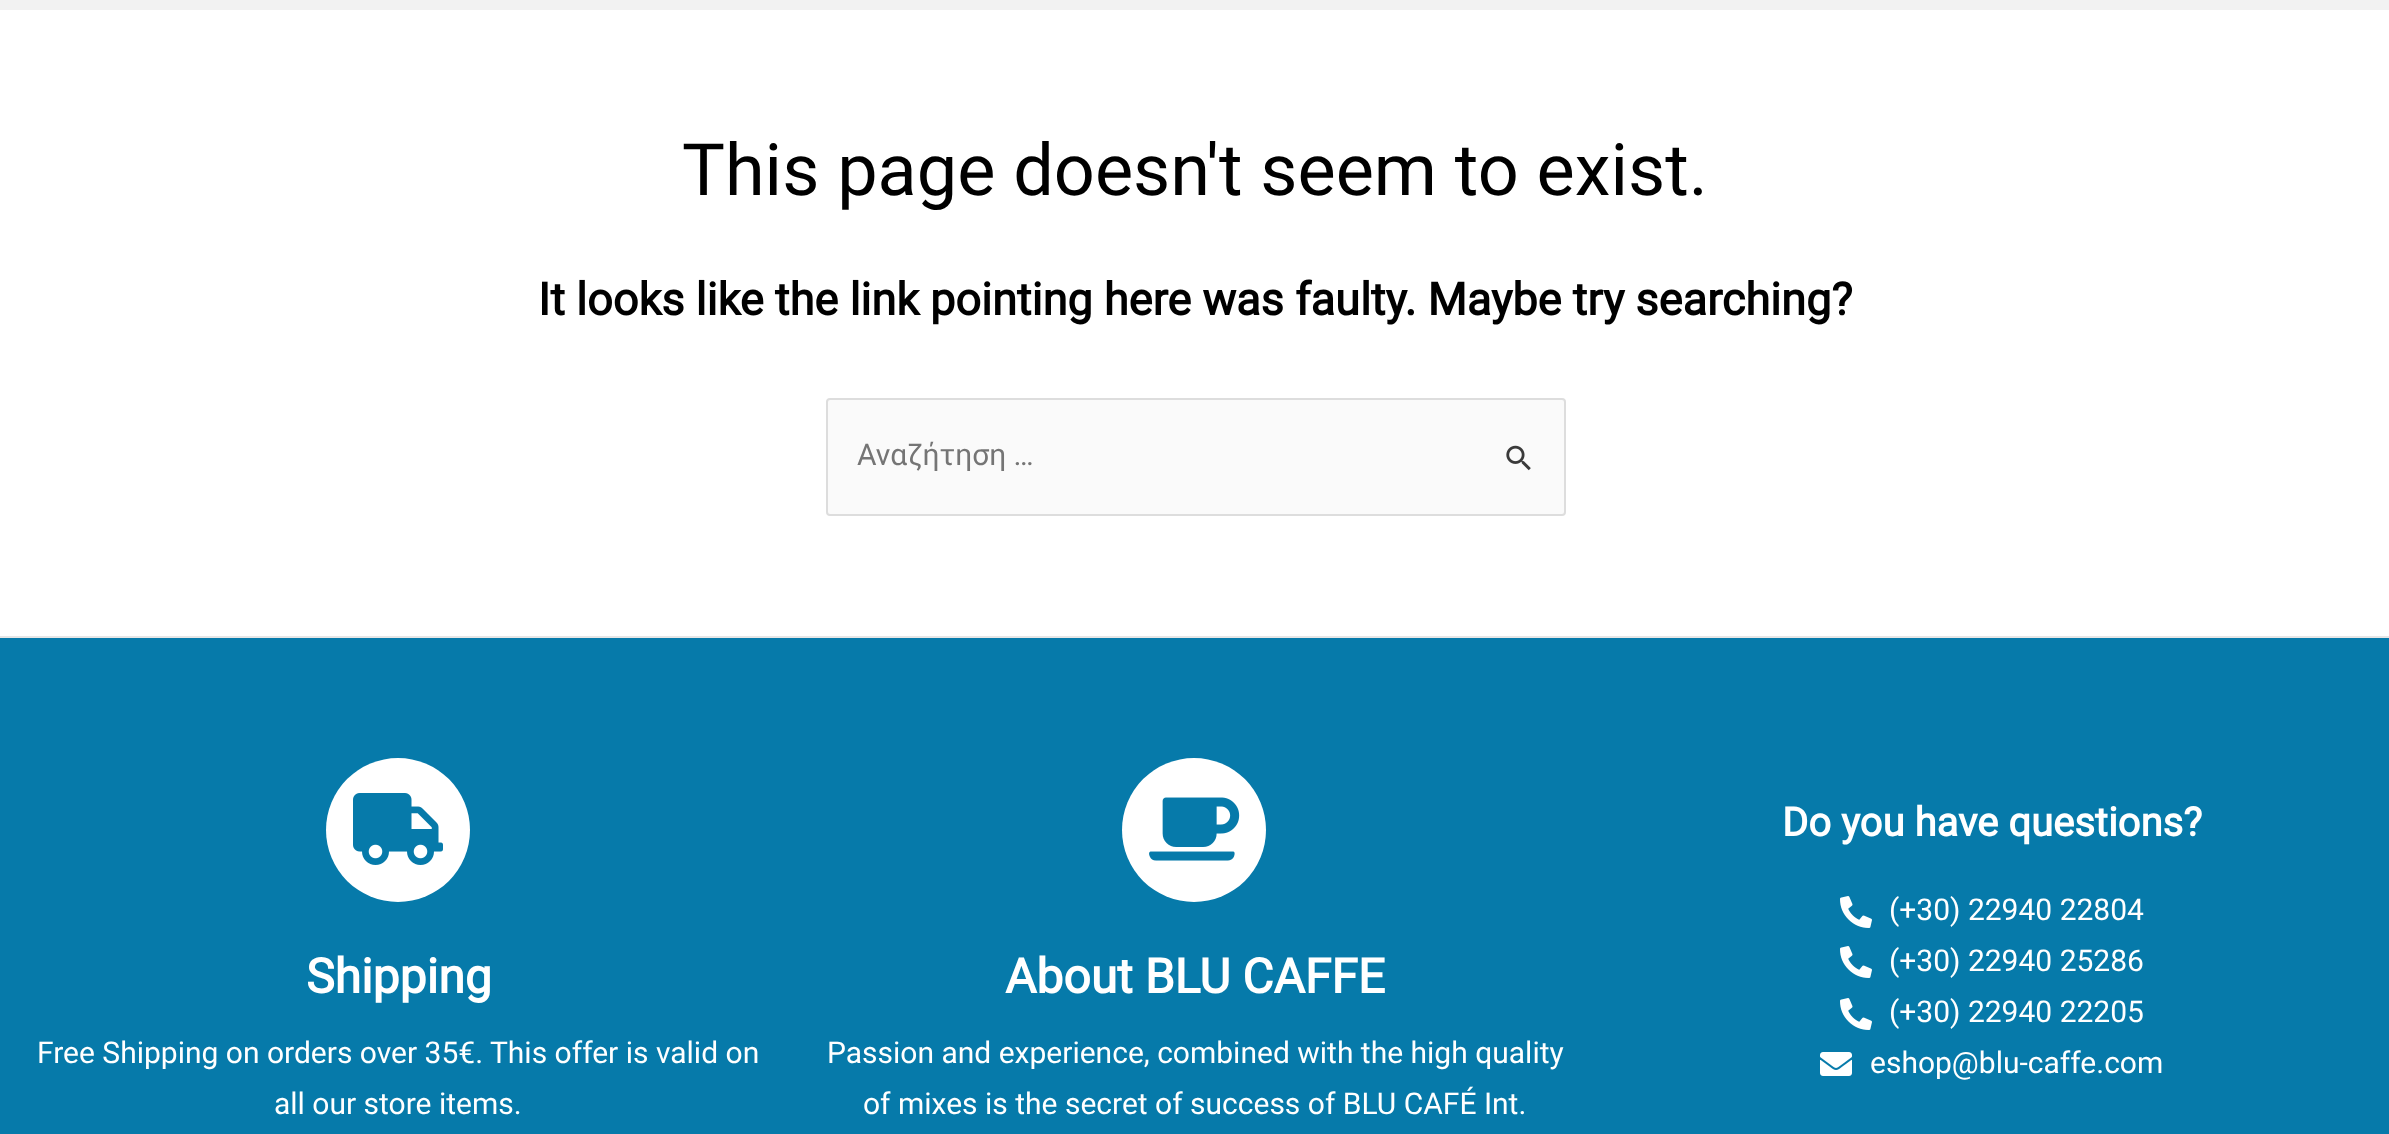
<!DOCTYPE html>
<meta charset="utf-8">
<style>body { margin: 0 } canvas { display: block }</style>
<canvas id="canvas" width="2389" height="1134"></canvas>
<script type="module">
  const canvas = document.getElementById("canvas");
  const ctx = canvas.getContext("2d");
  ctx.miterLimit = 4;
  ctx.fontKerning = "normal";
  async function loadImage(src) {
    const img = new Image();
    img.src = src;
    await img.decode();
    return img;
  }

  ctx.fillStyle = "#ffffff";
  ctx.fillRect(0, 0, 2389, 1134);
  ctx.fillStyle = "#f2f2f2";
  ctx.fillRect(0, 0, 2389, 10);
  ctx.font = "72px Roboto";
  ctx.fillStyle = "#000000";
  ctx.fillText("This page doesn't seem to exist.", 682, 195);
  ctx.font = "bold 45px Roboto";
  ctx.fillText("It looks like the link pointing here was faulty. Maybe try searching?", 538, 315);
  ctx.fillStyle = "#fafafa";
  ctx.beginPath();
  ctx.roundRect(827, 399, 738, 116, 3);
  ctx.fill();
  ctx.strokeStyle = "#dddddd";
  ctx.lineWidth = 2;
  ctx.stroke();
  ctx.font = "30px Roboto";
  ctx.fillStyle = "#757575";
  ctx.fillText("Αναζήτηση …", 857, 465);
  ctx.drawImage(await loadImage("img1.png"), 1506, 445, 25, 26);
  ctx.fillStyle = "#067aaa";
  ctx.fillRect(0, 638, 2389, 496);
  ctx.fillStyle = "#e6e6e6";
  ctx.fillRect(0, 636, 2389, 2);
  ctx.fillStyle = "#ffffff";
  ctx.beginPath();
  ctx.arc(398, 830, 72, 0, Math.PI * 2);
  ctx.fill();
  ctx.drawImage(await loadImage("img2.png"), 353, 793, 90, 72);
  ctx.font = "bold 48px Roboto";
  ctx.fillText("Shipping", 306, 993);
  ctx.font = "30px Roboto";
  ctx.fillText("Free Shipping on orders over 35€. This offer is valid on", 37, 1063);
  ctx.fillText("all our store items.", 274, 1114);
  ctx.beginPath();
  ctx.arc(1194, 830, 72, 0, Math.PI * 2);
  ctx.fill();
  ctx.drawImage(await loadImage("img3.png"), 1149, 797, 91, 64);
  ctx.font = "bold 48px Roboto";
  ctx.fillText("About BLU CAFFE", 1005, 993);
  ctx.font = "30px Roboto";
  ctx.fillText("Passion and experience, combined with the high quality", 827, 1063);
  ctx.fillText("of mixes is the secret of success of BLU CAFÉ Int.", 863, 1114);
  ctx.font = "bold 40px Roboto";
  ctx.fillText("Do you have questions?", 1782, 836);
  ctx.drawImage(await loadImage("img4.png"), 1840, 896, 32, 32);
  ctx.font = "30px Roboto";
  ctx.fillText("(+30) 22940 22804", 1889, 920);
  ctx.drawImage(await loadImage("img4.png"), 1840, 946, 32, 32);
  ctx.fillText("(+30) 22940 25286", 1889, 971);
  ctx.drawImage(await loadImage("img4.png"), 1840, 998, 32, 32);
  ctx.fillText("(+30) 22940 22205", 1889, 1022);
  ctx.drawImage(await loadImage("img5.png"), 1820, 1052, 32, 24);
  ctx.fillText("eshop@blu-caffe.com", 1870, 1073);
</script>
